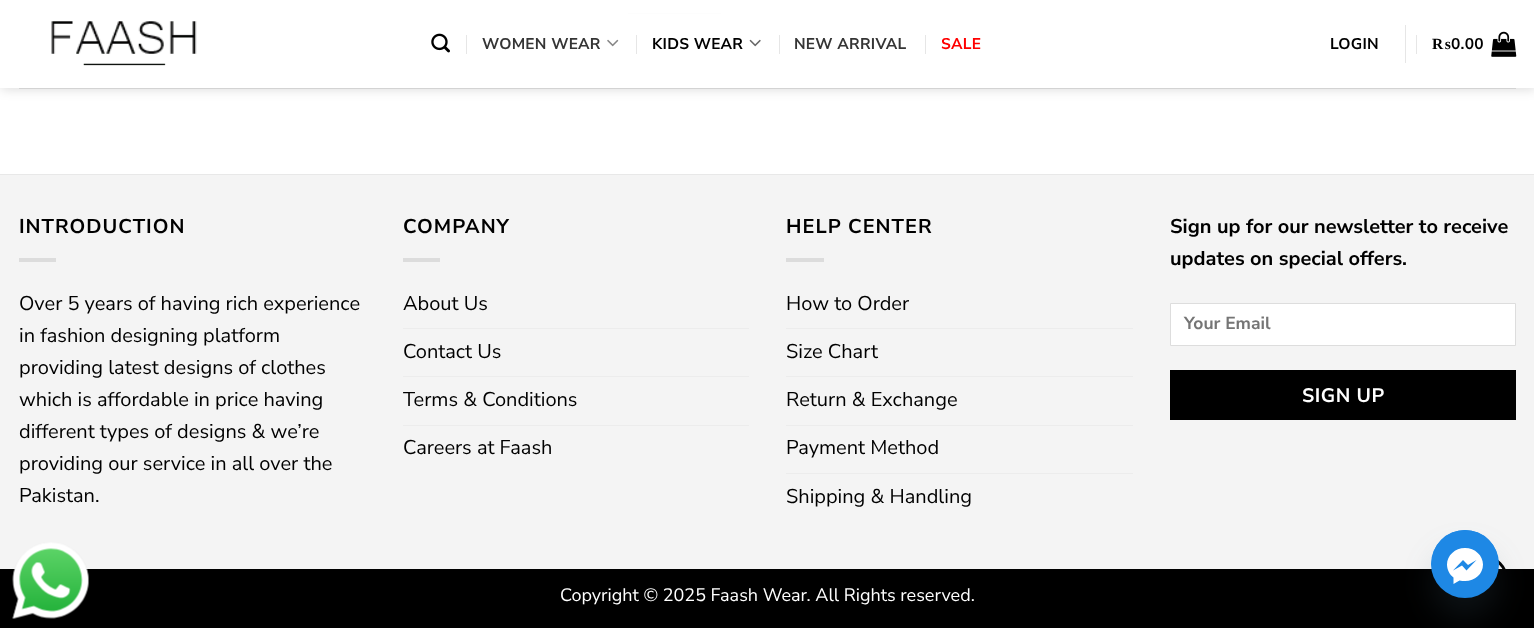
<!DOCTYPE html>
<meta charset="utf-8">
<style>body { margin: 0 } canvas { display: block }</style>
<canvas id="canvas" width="1534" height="628"></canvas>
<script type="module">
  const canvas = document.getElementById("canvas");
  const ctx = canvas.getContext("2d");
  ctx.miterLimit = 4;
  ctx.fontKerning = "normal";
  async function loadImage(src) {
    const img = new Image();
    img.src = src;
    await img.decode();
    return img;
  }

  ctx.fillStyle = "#ffffff";
  ctx.fillRect(0, 0, 1534, 628);
  ctx.fillStyle = "#000000";
  ctx.fillRect(628, 13, 93, 1);
  ctx.save();
  ctx.beginPath();
  ctx.moveTo(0, 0);
  ctx.lineTo(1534, 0);
  ctx.lineTo(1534, 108);
  ctx.lineTo(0, 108);
  ctx.closePath();
  ctx.moveTo(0, 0);
  ctx.lineTo(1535, 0);
  ctx.lineTo(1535, 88);
  ctx.lineTo(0, 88);
  ctx.closePath();
  ctx.clip("evenodd");
  ctx.fillStyle = "rgba(0, 0, 0, 0.15)";
  ctx.filter = "blur(6px)";
  ctx.beginPath();
  ctx.rect(1, 1, 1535, 88);
  ctx.fill();
  ctx.filter = "none";
  ctx.restore();
  ctx.fillStyle = "rgba(255, 255, 255, 0.9)";
  ctx.fillRect(0, 13, 1534, 75);
  ctx.fillRect(628, 13, 93, 1);
  ctx.drawImage(await loadImage("img1.png"), 51, 21, 146, 45);
  ctx.drawImage(await loadImage("img2.png"), 431, 33, 19, 20);
  ctx.fillStyle = "#e6e6e6";
  ctx.fillRect(466, 35, 1, 19);
  ctx.letterSpacing = "0.25px";
  ctx.font = "bold 15.5px Nunito Sans";
  ctx.fillStyle = "#353535";
  ctx.fillText("WOMEN WEAR", 482, 49);
  ctx.drawImage(await loadImage("img3.png"), 607, 39, 12, 8);
  ctx.fillStyle = "#e6e6e6";
  ctx.fillRect(636, 35, 1, 19);
  ctx.fillStyle = "#000000";
  ctx.fillText("KIDS WEAR", 652, 49);
  ctx.drawImage(await loadImage("img4.png"), 749, 39, 12, 8);
  ctx.fillStyle = "#e6e6e6";
  ctx.fillRect(779, 35, 1, 19);
  ctx.fillStyle = "#353535";
  ctx.fillText("NEW ARRIVAL", 794, 49);
  ctx.fillStyle = "#e6e6e6";
  ctx.fillRect(925, 35, 1, 19);
  ctx.fillStyle = "#ff0000";
  ctx.fillText("SALE", 941, 49);
  ctx.fillStyle = "#000000";
  ctx.fillText("LOGIN", 1330, 49);
  ctx.fillStyle = "#e6e6e6";
  ctx.fillRect(1405, 25, 1, 38);
  ctx.fillRect(1416, 35, 1, 19);
  ctx.font = "bold 15.5px Liberation Serif";
  ctx.fillStyle = "#000000";
  ctx.fillText("₨", 1432, 49);
  ctx.font = "bold 15.5px Nunito Sans";
  ctx.fillText("0.00", 1451, 49);
  ctx.drawImage(await loadImage("img5.png"), 1491, 31, 26, 26);
  ctx.fillStyle = "#d3d3d3";
  ctx.fillRect(19, 88, 1497, 1);
  ctx.fillStyle = "#f4f4f4";
  ctx.fillRect(0, 175, 1534, 394);
  ctx.fillStyle = "#e8e8e8";
  ctx.fillRect(0, 174, 1534, 1);
  ctx.letterSpacing = "1px";
  ctx.font = "bold 20px Nunito Sans";
  ctx.fillStyle = "#000000";
  ctx.fillText("INTRODUCTION", 19, 233);
  ctx.fillStyle = "#dcdcdc";
  ctx.fillRect(19, 258, 37, 4);
  ctx.letterSpacing = "0px";
  ctx.font = "20px Nunito Sans";
  ctx.fillStyle = "#000000";
  ctx.fillText("Over 5 years of having rich experience", 19, 310);
  ctx.fillText("in fashion designing platform", 19, 342);
  ctx.fillText("providing latest designs of clothes", 19, 374);
  ctx.fillText("which is affordable in price having", 19, 406);
  ctx.fillText("different types of designs & we’re", 19, 438);
  ctx.fillText("providing our service in all over the", 19, 470);
  ctx.fillText("Pakistan.", 19, 502);
  ctx.letterSpacing = "1px";
  ctx.font = "bold 20px Nunito Sans";
  ctx.fillText("COMPANY", 403, 233);
  ctx.fillStyle = "#dcdcdc";
  ctx.fillRect(403, 258, 37, 4);
  ctx.letterSpacing = "0px";
  ctx.font = "20px Nunito Sans";
  ctx.fillStyle = "#000000";
  ctx.fillText("About Us", 403, 310);
  ctx.fillStyle = "#ececec";
  ctx.fillRect(403, 328, 346, 1);
  ctx.fillStyle = "#000000";
  ctx.fillText("Contact Us", 403, 358);
  ctx.fillStyle = "#ececec";
  ctx.fillRect(403, 376, 346, 1);
  ctx.fillStyle = "#000000";
  ctx.fillText("Terms & Conditions", 403, 406);
  ctx.fillStyle = "#ececec";
  ctx.fillRect(403, 425, 346, 1);
  ctx.fillStyle = "#000000";
  ctx.fillText("Careers at Faash", 403, 454);
  ctx.letterSpacing = "1px";
  ctx.font = "bold 20px Nunito Sans";
  ctx.fillText("HELP CENTER", 786, 233);
  ctx.fillStyle = "#dcdcdc";
  ctx.fillRect(786, 258, 38, 4);
  ctx.letterSpacing = "0px";
  ctx.font = "20px Nunito Sans";
  ctx.fillStyle = "#000000";
  ctx.fillText("How to Order", 786, 310);
  ctx.fillStyle = "#ececec";
  ctx.fillRect(786, 328, 347, 1);
  ctx.fillStyle = "#000000";
  ctx.fillText("Size Chart", 786, 358);
  ctx.fillStyle = "#ececec";
  ctx.fillRect(786, 376, 347, 1);
  ctx.fillStyle = "#000000";
  ctx.fillText("Return & Exchange", 786, 406);
  ctx.fillStyle = "#ececec";
  ctx.fillRect(786, 425, 347, 1);
  ctx.fillStyle = "#000000";
  ctx.fillText("Payment Method", 786, 454);
  ctx.fillStyle = "#ececec";
  ctx.fillRect(786, 473, 347, 1);
  ctx.fillStyle = "#000000";
  ctx.fillText("Shipping & Handling", 786, 503);
  ctx.font = "bold 20px Nunito Sans";
  ctx.fillText("Sign up for our newsletter to receive", 1170, 233);
  ctx.fillText("updates on special offers.", 1170, 265);
  ctx.fillStyle = "#ffffff";
  ctx.beginPath();
  ctx.rect(1170.5, 303.5, 345, 42);
  ctx.fill();
  ctx.strokeStyle = "#dddddd";
  ctx.stroke();
  ctx.font = "bold 17.5px Nunito Sans";
  ctx.fillStyle = "#757575";
  ctx.fillText("Your Email", 1184, 329);
  ctx.fillStyle = "#000000";
  ctx.fillRect(1170, 370, 346, 50);
  ctx.letterSpacing = "0.5px";
  ctx.font = "bold 19.5px Nunito Sans";
  ctx.fillStyle = "#ffffff";
  ctx.fillText("SIGN UP", 1302, 402);
  ctx.fillStyle = "#000000";
  ctx.fillRect(0, 569, 1534, 59);
  ctx.letterSpacing = "0px";
  ctx.font = "18px Nunito Sans";
  ctx.fillStyle = "#ffffff";
  ctx.fillText("Copyright © 2025 Faash Wear. All Rights reserved.", 560, 601);
  ctx.beginPath();
  ctx.arc(1483.5, 579.5, 23, 0, Math.PI * 2);
  ctx.strokeStyle = "#000000";
  ctx.lineWidth = 3;
  ctx.stroke();
  ctx.drawImage(await loadImage("img6.png"), 12, 542, 77, 77);
  ctx.fillStyle = "rgba(73, 104, 126, 0.16)";
  ctx.filter = "blur(15px)";
  ctx.beginPath();
  ctx.roundRect(1431, 550, 68, 68, 34);
  ctx.fill();
  ctx.filter = "none";
  ctx.fillStyle = "#1e88e5";
  ctx.beginPath();
  ctx.arc(1465, 564, 34, 0, Math.PI * 2);
  ctx.fill();
  ctx.beginPath();
  ctx.arc(1465, 563.5, 33.5, 0, Math.PI * 2);
  ctx.fill();
  ctx.fillStyle = "#ffffff";
  ctx.beginPath();
  ctx.moveTo(1447, 564.5);
  ctx.bezierCurveTo(1447, 555.5, 1455, 548, 1465, 548);
  ctx.bezierCurveTo(1475, 548, 1483, 555.5, 1483, 564.5);
  ctx.bezierCurveTo(1483, 574, 1475, 581, 1465, 581);
  ctx.bezierCurveTo(1463, 581, 1461.5, 581, 1459.5, 580.5);
  ctx.lineTo(1453.5, 584);
  ctx.lineTo(1453.5, 577.5);
  ctx.bezierCurveTo(1449.5, 574.5, 1447, 569.5, 1447, 564.5);
  ctx.closePath();
  ctx.moveTo(1462, 565.5);
  ctx.lineTo(1466.5, 570.5);
  ctx.lineTo(1476.5, 560);
  ctx.lineTo(1468, 565);
  ctx.lineTo(1463, 560);
  ctx.lineTo(1453, 570.5);
  ctx.closePath();
  ctx.fill("evenodd");
</script>
